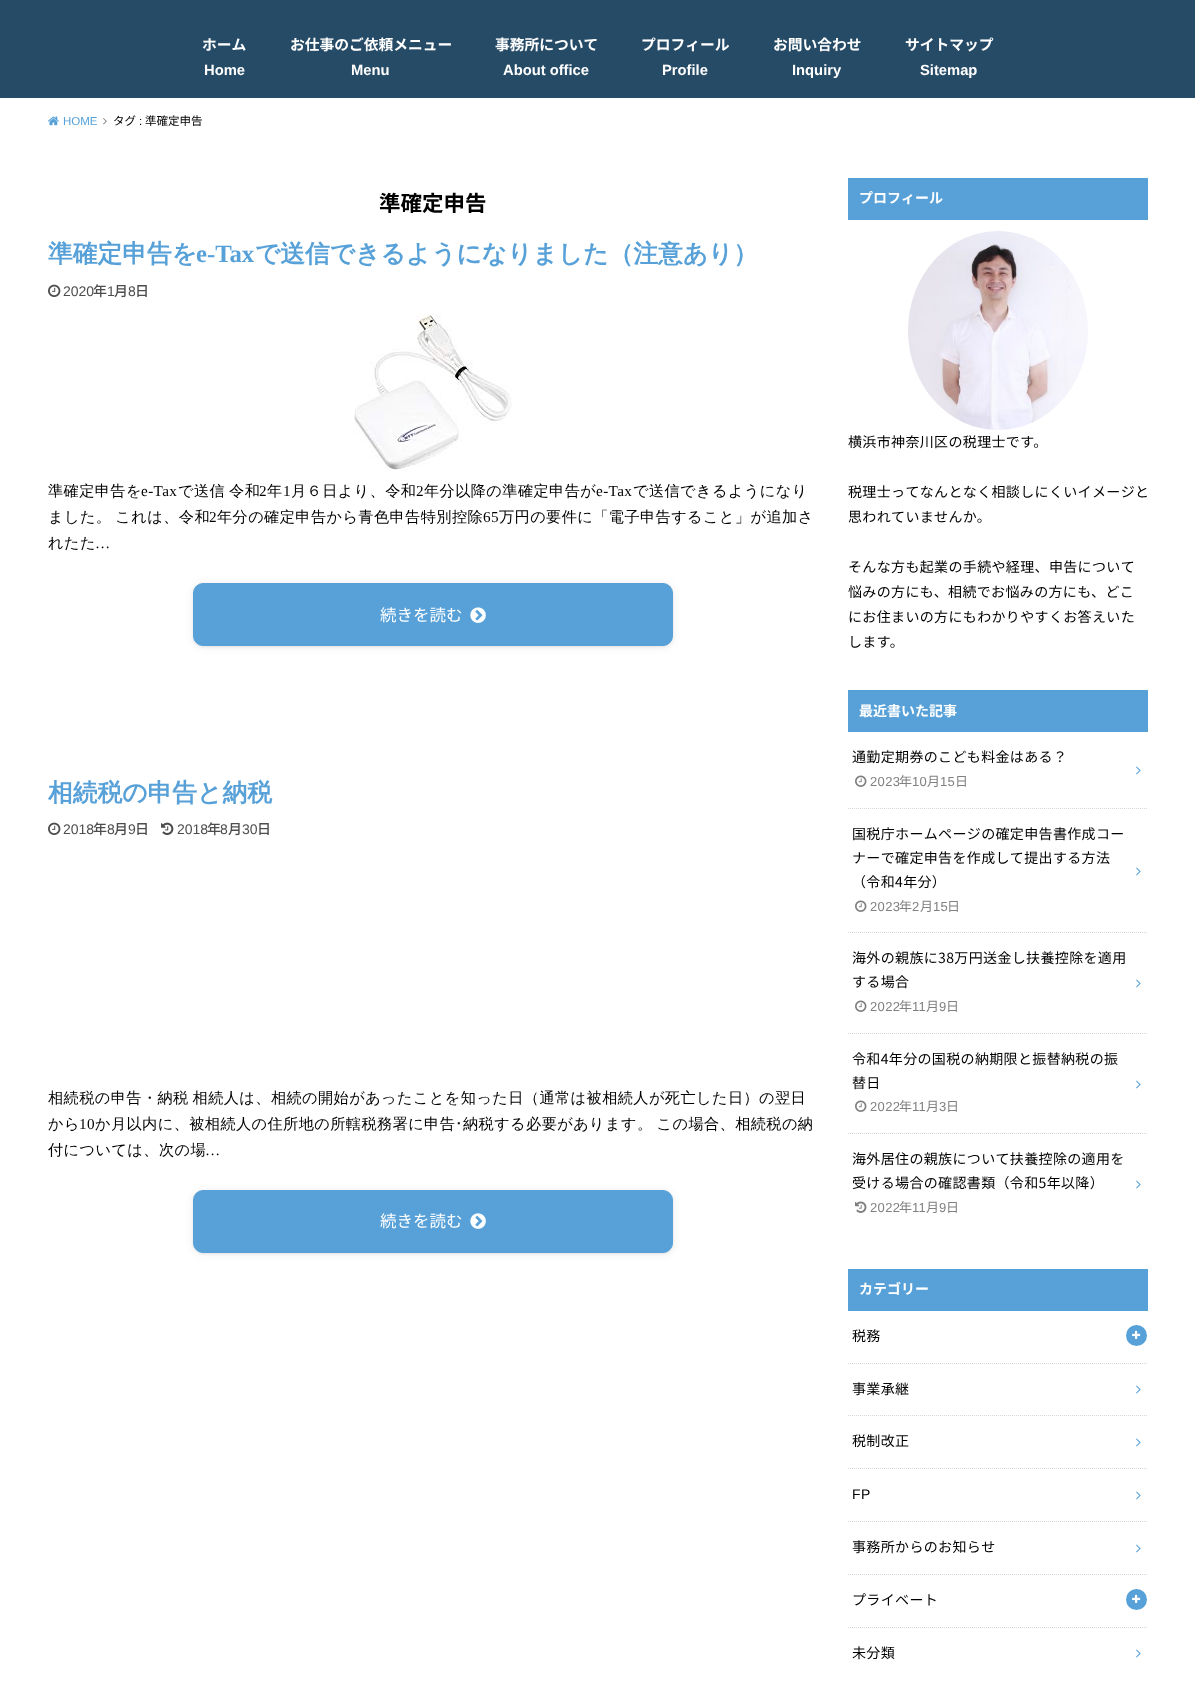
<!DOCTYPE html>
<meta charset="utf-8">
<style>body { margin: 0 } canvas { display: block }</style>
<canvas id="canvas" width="1195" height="1693"></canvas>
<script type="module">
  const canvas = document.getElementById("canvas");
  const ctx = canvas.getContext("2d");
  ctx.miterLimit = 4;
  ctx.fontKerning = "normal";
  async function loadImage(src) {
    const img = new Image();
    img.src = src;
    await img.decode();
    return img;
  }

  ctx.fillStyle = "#ffffff";
  ctx.fillRect(0, 0, 1195, 1693);
  ctx.fillStyle = "#264b67";
  ctx.fillRect(0, 0, 1195, 98);
  ctx.font = "bold 14.75px Noto Sans JP";
  ctx.fillStyle = "#ffffff";
  ctx.fillText("ホーム", 202, 50);
  ctx.font = "bold 14.75px Liberation Sans";
  ctx.fillText("Home", 204, 75);
  ctx.font = "bold 14.75px Noto Sans JP";
  ctx.fillText("お仕事のご依頼メニュー", 290, 50);
  ctx.font = "bold 14.75px Liberation Sans";
  ctx.fillText("Menu", 351, 75);
  ctx.font = "bold 14.75px Noto Sans JP";
  ctx.fillText("事務所について", 495, 50);
  ctx.font = "bold 14.75px Liberation Sans";
  ctx.fillText("About office", 503, 75);
  ctx.font = "bold 14.75px Noto Sans JP";
  ctx.fillText("プロフィール", 641, 50);
  ctx.font = "bold 14.75px Liberation Sans";
  ctx.fillText("Profile", 662, 75);
  ctx.font = "bold 14.75px Noto Sans JP";
  ctx.fillText("お問い合わせ", 773, 50);
  ctx.font = "bold 14.75px Liberation Sans";
  ctx.fillText("Inquiry", 792, 75);
  ctx.font = "bold 14.75px Noto Sans JP";
  ctx.fillText("サイトマップ", 905, 50);
  ctx.font = "bold 14.75px Liberation Sans";
  ctx.fillText("Sitemap", 920, 75);
  ctx.drawImage(await loadImage("img1.png"), 48, 116, 11, 10);
  ctx.font = "11.5px Liberation Sans";
  ctx.fillStyle = "#57a1d8";
  ctx.fillText("HOME", 63, 125);
  ctx.drawImage(await loadImage("img2.png"), 103, 118, 4, 7);
  ctx.font = "11.5px Noto Sans JP";
  ctx.fillStyle = "#000000";
  ctx.fillText("タグ", 113, 125);
  ctx.font = "11.5px Liberation Sans";
  ctx.fillText(":", 139, 125);
  ctx.font = "11.5px Noto Sans JP";
  ctx.fillText("準確定申告", 145, 125);
  ctx.font = "bold 21.5px Noto Sans JP";
  ctx.fillText("準確定申告", 379, 211);
  ctx.font = "bold 24.75px WenQuanYi Zen Hei";
  ctx.fillStyle = "#57a1d8";
  ctx.fillText("準確定申告を", 48, 262);
  ctx.font = "bold 24.75px Liberation Serif";
  ctx.fillText("e-Tax", 196, 262);
  ctx.font = "bold 24.75px WenQuanYi Zen Hei";
  ctx.fillText("で送信できるようになりました（注意あり）", 255, 262);
  ctx.drawImage(await loadImage("img3.png"), 48, 284, 13, 13);
  ctx.font = "14px Liberation Sans";
  ctx.fillStyle = "#4d4d4d";
  ctx.fillText("2020", 63, 296);
  ctx.font = "500 14px Noto Sans JP";
  ctx.fillText("年", 93, 296);
  ctx.font = "14px Liberation Sans";
  ctx.fillText("1", 107, 296);
  ctx.font = "500 14px Noto Sans JP";
  ctx.fillText("月", 114, 296);
  ctx.font = "14px Liberation Sans";
  ctx.fillText("8", 128, 296);
  ctx.font = "500 14px Noto Sans JP";
  ctx.fillText("日", 135, 296);
  ctx.drawImage(await loadImage("img4.png"), 354, 314, 159, 157);
  ctx.letterSpacing = "0.4px";
  ctx.font = "500 15.2px WenQuanYi Zen Hei";
  ctx.fillStyle = "#000000";
  ctx.fillText("準確定申告を", 48, 496);
  ctx.font = "15.2px Liberation Serif";
  ctx.fillText("e-Tax", 141, 496);
  ctx.wordSpacing = "-1px";
  ctx.font = "500 15.2px WenQuanYi Zen Hei";
  ctx.fillText("で送信 令和", 178, 496);
  ctx.wordSpacing = "0px";
  ctx.font = "15.2px Liberation Serif";
  ctx.fillText("2", 259, 496);
  ctx.font = "500 15.2px WenQuanYi Zen Hei";
  ctx.fillText("年", 267, 496);
  ctx.font = "15.2px Liberation Serif";
  ctx.fillText("1", 283, 496);
  ctx.font = "500 15.2px WenQuanYi Zen Hei";
  ctx.fillText("月６日より、令和", 291, 496);
  ctx.font = "15.2px Liberation Serif";
  ctx.fillText("2", 416, 496);
  ctx.font = "500 15.2px WenQuanYi Zen Hei";
  ctx.fillText("年分以降の準確定申告が", 424, 496);
  ctx.font = "15.2px Liberation Serif";
  ctx.fillText("e-Tax", 596, 496);
  ctx.font = "500 15.2px WenQuanYi Zen Hei";
  ctx.fillText("で送信できるようになり", 633, 496);
  ctx.wordSpacing = "-1px";
  ctx.fillText("ました。 これは、令和", 48, 522);
  ctx.wordSpacing = "0px";
  ctx.font = "15.2px Liberation Serif";
  ctx.fillText("2", 209, 522);
  ctx.font = "500 15.2px WenQuanYi Zen Hei";
  ctx.fillText("年分の確定申告から青色申告特別控除", 217, 522);
  ctx.font = "15.2px Liberation Serif";
  ctx.fillText("65", 483, 522);
  ctx.font = "500 15.2px WenQuanYi Zen Hei";
  ctx.fillText("万円の要件に「電子申告すること」が追加さ", 499, 522);
  ctx.fillText("れたた", 48, 548);
  ctx.font = "15.2px Liberation Serif";
  ctx.fillText("…", 95, 548);
  ctx.fillStyle = "rgba(0, 0, 0, 0.07)";
  ctx.filter = "blur(5px)";
  ctx.beginPath();
  ctx.roundRect(193, 584, 480, 63, 10);
  ctx.fill();
  ctx.filter = "none";
  ctx.filter = "blur(1px)";
  ctx.beginPath();
  ctx.roundRect(193, 584, 480, 63, 10);
  ctx.fill();
  ctx.filter = "none";
  ctx.fillStyle = "#57a1d8";
  ctx.beginPath();
  ctx.roundRect(193.5, 583.5, 479, 62, 9.5);
  ctx.fill();
  ctx.strokeStyle = "#57a1d8";
  ctx.stroke();
  ctx.letterSpacing = "0px";
  ctx.font = "16.5px Noto Sans JP";
  ctx.fillStyle = "#ffffff";
  ctx.fillText("続きを読む", 380, 621);
  ctx.drawImage(await loadImage("img5.png"), 470, 607, 16, 16);
  ctx.font = "bold 24.75px WenQuanYi Zen Hei";
  ctx.fillStyle = "#57a1d8";
  ctx.fillText("相続税の申告と納税", 48, 801);
  ctx.drawImage(await loadImage("img3.png"), 48, 822, 13, 13);
  ctx.font = "14px Liberation Sans";
  ctx.fillStyle = "#4d4d4d";
  ctx.fillText("2018", 63, 834);
  ctx.font = "500 14px Noto Sans JP";
  ctx.fillText("年", 93, 834);
  ctx.font = "14px Liberation Sans";
  ctx.fillText("8", 107, 834);
  ctx.font = "500 14px Noto Sans JP";
  ctx.fillText("月", 114, 834);
  ctx.font = "14px Liberation Sans";
  ctx.fillText("9", 128, 834);
  ctx.font = "500 14px Noto Sans JP";
  ctx.fillText("日", 135, 834);
  ctx.drawImage(await loadImage("img6.png"), 161, 822, 13, 13);
  ctx.font = "14px Liberation Sans";
  ctx.fillText("2018", 177, 834);
  ctx.font = "500 14px Noto Sans JP";
  ctx.fillText("年", 207, 834);
  ctx.font = "14px Liberation Sans";
  ctx.fillText("8", 220, 834);
  ctx.font = "500 14px Noto Sans JP";
  ctx.fillText("月", 228, 834);
  ctx.font = "14px Liberation Sans";
  ctx.fillText("30", 242, 834);
  ctx.font = "500 14px Noto Sans JP";
  ctx.fillText("日", 257, 834);
  ctx.letterSpacing = "0.4px";
  ctx.wordSpacing = "-1px";
  ctx.font = "500 15.2px WenQuanYi Zen Hei";
  ctx.fillStyle = "#000000";
  ctx.fillText("相続税の申告・納税 相続人は、相続の開始があったことを知った日（通常は被相続人が死亡した日）の翌日", 48, 1103);
  ctx.wordSpacing = "0px";
  ctx.fillText("から", 48, 1129);
  ctx.font = "15.2px Liberation Serif";
  ctx.fillText("10", 79, 1129);
  ctx.font = "500 15.2px WenQuanYi Zen Hei";
  ctx.fillText("か月以内に、被相続人の住所地の所轄税務署に申告", 95, 1129);
  ctx.font = "15.2px IPAPGothic";
  ctx.fillText("･", 455, 1129);
  ctx.wordSpacing = "-1px";
  ctx.font = "500 15.2px WenQuanYi Zen Hei";
  ctx.fillText("納税する必要があります。 この場合、相続税の納", 463, 1129);
  ctx.wordSpacing = "0px";
  ctx.fillText("付については、次の場", 48, 1155);
  ctx.font = "15.2px Liberation Serif";
  ctx.fillText("…", 205, 1155);
  ctx.fillStyle = "rgba(0, 0, 0, 0.07)";
  ctx.filter = "blur(5px)";
  ctx.beginPath();
  ctx.roundRect(193, 1191, 480, 63, 10);
  ctx.fill();
  ctx.filter = "none";
  ctx.filter = "blur(1px)";
  ctx.beginPath();
  ctx.roundRect(193, 1191, 480, 63, 10);
  ctx.fill();
  ctx.filter = "none";
  ctx.fillStyle = "#57a1d8";
  ctx.beginPath();
  ctx.roundRect(193.5, 1190.5, 479, 62, 9.5);
  ctx.fill();
  ctx.stroke();
  ctx.letterSpacing = "0px";
  ctx.font = "16.5px Noto Sans JP";
  ctx.fillStyle = "#ffffff";
  ctx.fillText("続きを読む", 380, 1227);
  ctx.drawImage(await loadImage("img7.png"), 470, 1213, 16, 16);
  ctx.fillStyle = "#57a1d8";
  ctx.fillRect(848, 178, 300, 42);
  ctx.font = "bold 14px Noto Sans JP";
  ctx.fillStyle = "#ffffff";
  ctx.fillText("プロフィール", 859, 203);
  ctx.drawImage(await loadImage("img8.png"), 908, 231, 180, 199);
  ctx.letterSpacing = "0.35px";
  ctx.font = "14px Noto Sans JP";
  ctx.fillStyle = "#000000";
  ctx.fillText("横浜市神奈川区の税理士です。", 848, 447);
  ctx.fillText("税理士ってなんとなく相談しにくいイメージと", 848, 497);
  ctx.fillText("思われていませんか。", 848, 522);
  ctx.fillText("そんな方も起業の手続や経理、申告について", 848, 572);
  ctx.fillText("悩みの方にも、相続でお悩みの方にも、どこ", 848, 597);
  ctx.fillText("にお住まいの方にもわかりやすくお答えいた", 848, 622);
  ctx.fillText("します。", 848, 647);
  ctx.fillStyle = "#57a1d8";
  ctx.fillRect(848, 690, 300, 42);
  ctx.letterSpacing = "0px";
  ctx.font = "bold 14px Noto Sans JP";
  ctx.fillStyle = "#ffffff";
  ctx.fillText("最近書いた記事", 859, 716);
  ctx.beginPath();
  ctx.moveTo(848, 808.5);
  ctx.lineTo(1148, 808.5);
  ctx.strokeStyle = "#d8d8d8";
  ctx.setLineDash([1, 1]);
  ctx.stroke();
  ctx.letterSpacing = "0.35px";
  ctx.font = "14px Noto Sans JP";
  ctx.fillStyle = "#000000";
  ctx.fillText("通勤定期券のこども料金はある？", 852, 762);
  ctx.drawImage(await loadImage("img9.png"), 1136, 766, 5, 9);
  ctx.drawImage(await loadImage("img10.png"), 855, 775, 12, 12);
  ctx.font = "13px Liberation Sans";
  ctx.fillStyle = "#808080";
  ctx.fillText("2023", 870, 786);
  ctx.font = "13px Noto Sans JP";
  ctx.fillText("年", 899, 786);
  ctx.font = "13px Liberation Sans";
  ctx.fillText("10", 912, 786);
  ctx.font = "13px Noto Sans JP";
  ctx.fillText("月", 927, 786);
  ctx.font = "13px Liberation Sans";
  ctx.fillText("15", 940, 786);
  ctx.font = "13px Noto Sans JP";
  ctx.fillText("日", 955, 786);
  ctx.beginPath();
  ctx.moveTo(848, 932.5);
  ctx.lineTo(1148, 932.5);
  ctx.stroke();
  ctx.font = "14px Noto Sans JP";
  ctx.fillStyle = "#000000";
  ctx.fillText("国税庁ホームページの確定申告書作成コー", 852, 839);
  ctx.fillText("ナーで確定申告を作成して提出する方法", 852, 863);
  ctx.fillText("（令和4年分）", 852, 887);
  ctx.drawImage(await loadImage("img9.png"), 1136, 867, 5, 9);
  ctx.drawImage(await loadImage("img10.png"), 855, 900, 12, 12);
  ctx.font = "13px Liberation Sans";
  ctx.fillStyle = "#808080";
  ctx.fillText("2023", 870, 911);
  ctx.font = "13px Noto Sans JP";
  ctx.fillText("年", 899, 911);
  ctx.font = "13px Liberation Sans";
  ctx.fillText("2", 912, 911);
  ctx.font = "13px Noto Sans JP";
  ctx.fillText("月", 920, 911);
  ctx.font = "13px Liberation Sans";
  ctx.fillText("15", 933, 911);
  ctx.font = "13px Noto Sans JP";
  ctx.fillText("日", 947, 911);
  ctx.beginPath();
  ctx.moveTo(848, 1033.5);
  ctx.lineTo(1148, 1033.5);
  ctx.stroke();
  ctx.font = "14px Noto Sans JP";
  ctx.fillStyle = "#000000";
  ctx.fillText("海外の親族に38万円送金し扶養控除を適用", 852, 963);
  ctx.fillText("する場合", 852, 987);
  ctx.drawImage(await loadImage("img9.png"), 1136, 979, 5, 9);
  ctx.drawImage(await loadImage("img10.png"), 855, 1000, 12, 12);
  ctx.font = "13px Liberation Sans";
  ctx.fillStyle = "#808080";
  ctx.fillText("2022", 870, 1011);
  ctx.font = "13px Noto Sans JP";
  ctx.fillText("年", 899, 1011);
  ctx.font = "13px Liberation Sans";
  ctx.fillText("11", 912, 1011);
  ctx.font = "13px Noto Sans JP";
  ctx.fillText("月", 926, 1011);
  ctx.font = "13px Liberation Sans";
  ctx.fillText("9", 939, 1011);
  ctx.font = "13px Noto Sans JP";
  ctx.fillText("日", 946, 1011);
  ctx.beginPath();
  ctx.moveTo(848, 1133.5);
  ctx.lineTo(1148, 1133.5);
  ctx.stroke();
  ctx.font = "14px Noto Sans JP";
  ctx.fillStyle = "#000000";
  ctx.fillText("令和4年分の国税の納期限と振替納税の振", 852, 1064);
  ctx.fillText("替日", 852, 1088);
  ctx.drawImage(await loadImage("img9.png"), 1136, 1080, 5, 9);
  ctx.drawImage(await loadImage("img10.png"), 855, 1100, 12, 12);
  ctx.font = "13px Liberation Sans";
  ctx.fillStyle = "#808080";
  ctx.fillText("2022", 870, 1111);
  ctx.font = "13px Noto Sans JP";
  ctx.fillText("年", 899, 1111);
  ctx.font = "13px Liberation Sans";
  ctx.fillText("11", 912, 1111);
  ctx.font = "13px Noto Sans JP";
  ctx.fillText("月", 926, 1111);
  ctx.font = "13px Liberation Sans";
  ctx.fillText("3", 939, 1111);
  ctx.font = "13px Noto Sans JP";
  ctx.fillText("日", 946, 1111);
  ctx.font = "14px Noto Sans JP";
  ctx.fillStyle = "#000000";
  ctx.fillText("海外居住の親族について扶養控除の適用を", 852, 1164);
  ctx.fillText("受ける場合の確認書類（令和5年以降）", 852, 1188);
  ctx.drawImage(await loadImage("img9.png"), 1136, 1180, 5, 9);
  ctx.drawImage(await loadImage("img11.png"), 855, 1201, 12, 12);
  ctx.font = "13px Liberation Sans";
  ctx.fillStyle = "#808080";
  ctx.fillText("2022", 870, 1212);
  ctx.font = "13px Noto Sans JP";
  ctx.fillText("年", 899, 1212);
  ctx.font = "13px Liberation Sans";
  ctx.fillText("11", 912, 1212);
  ctx.font = "13px Noto Sans JP";
  ctx.fillText("月", 926, 1212);
  ctx.font = "13px Liberation Sans";
  ctx.fillText("9", 939, 1212);
  ctx.font = "13px Noto Sans JP";
  ctx.fillText("日", 946, 1212);
  ctx.fillStyle = "#57a1d8";
  ctx.fillRect(848, 1269, 300, 42);
  ctx.letterSpacing = "0px";
  ctx.font = "bold 14px Noto Sans JP";
  ctx.fillStyle = "#ffffff";
  ctx.fillText("カテゴリー", 859, 1294);
  ctx.beginPath();
  ctx.moveTo(848, 1363.5);
  ctx.lineTo(1148, 1363.5);
  ctx.stroke();
  ctx.letterSpacing = "0.35px";
  ctx.font = "14px Noto Sans JP";
  ctx.fillStyle = "#000000";
  ctx.fillText("税務", 852, 1341);
  ctx.fillStyle = "#57a1d8";
  ctx.beginPath();
  ctx.arc(1136.5, 1335.5, 10.5, 0, Math.PI * 2);
  ctx.fill();
  ctx.drawImage(await loadImage("img12.png"), 1132, 1330, 9, 9);
  ctx.beginPath();
  ctx.moveTo(848, 1415.5);
  ctx.lineTo(1148, 1415.5);
  ctx.stroke();
  ctx.fillStyle = "#000000";
  ctx.fillText("事業承継", 852, 1394);
  ctx.drawImage(await loadImage("img9.png"), 1136, 1385, 5, 9);
  ctx.beginPath();
  ctx.moveTo(848, 1468.5);
  ctx.lineTo(1148, 1468.5);
  ctx.stroke();
  ctx.fillText("税制改正", 852, 1446);
  ctx.drawImage(await loadImage("img9.png"), 1136, 1438, 5, 9);
  ctx.beginPath();
  ctx.moveTo(848, 1521.5);
  ctx.lineTo(1148, 1521.5);
  ctx.stroke();
  ctx.font = "14px Liberation Sans";
  ctx.fillText("FP", 852, 1499);
  ctx.drawImage(await loadImage("img9.png"), 1136, 1491, 5, 9);
  ctx.beginPath();
  ctx.moveTo(848, 1574.5);
  ctx.lineTo(1148, 1574.5);
  ctx.stroke();
  ctx.font = "14px Noto Sans JP";
  ctx.fillText("事務所からのお知らせ", 852, 1552);
  ctx.drawImage(await loadImage("img9.png"), 1136, 1544, 5, 9);
  ctx.beginPath();
  ctx.moveTo(848, 1627.5);
  ctx.lineTo(1148, 1627.5);
  ctx.stroke();
  ctx.fillText("プライベート", 852, 1605);
  ctx.fillStyle = "#57a1d8";
  ctx.beginPath();
  ctx.arc(1136.5, 1599.5, 10.5, 0, Math.PI * 2);
  ctx.fill();
  ctx.drawImage(await loadImage("img12.png"), 1132, 1594, 9, 9);
  ctx.fillStyle = "#000000";
  ctx.fillText("未分類", 852, 1658);
  ctx.drawImage(await loadImage("img9.png"), 1136, 1649, 5, 9);
</script>
